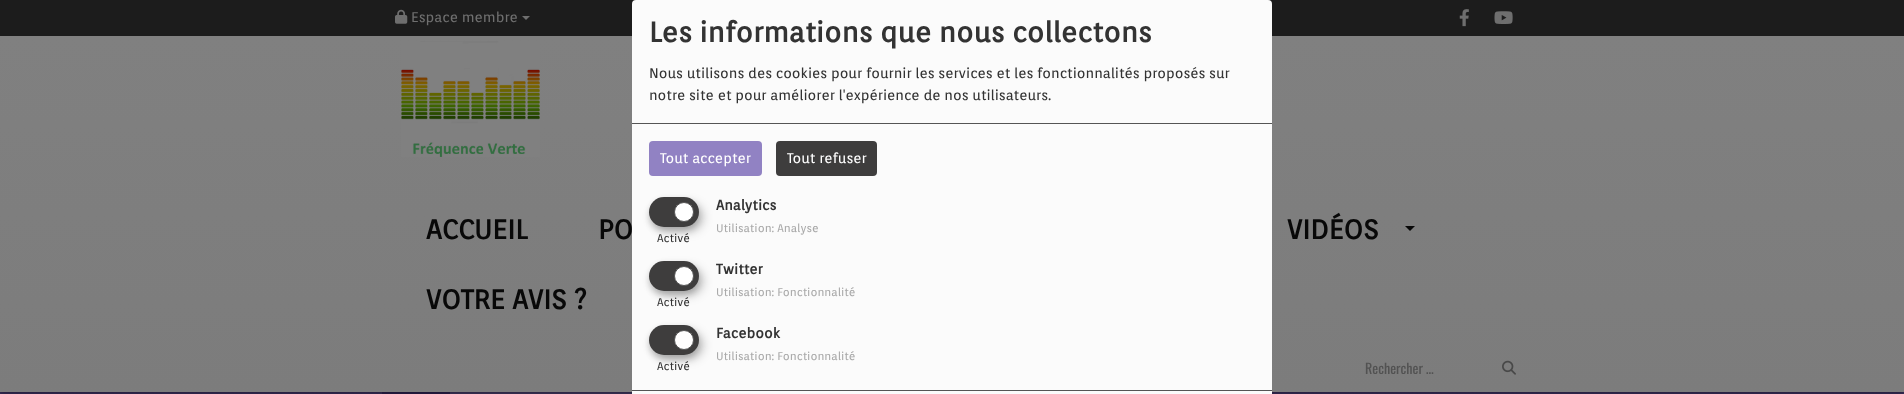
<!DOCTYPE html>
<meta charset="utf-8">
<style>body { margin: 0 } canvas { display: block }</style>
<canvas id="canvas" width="1904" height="394"></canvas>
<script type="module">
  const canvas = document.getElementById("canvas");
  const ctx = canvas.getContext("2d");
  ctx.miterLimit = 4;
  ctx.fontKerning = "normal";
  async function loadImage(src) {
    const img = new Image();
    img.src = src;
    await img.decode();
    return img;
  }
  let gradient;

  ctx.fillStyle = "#ffffff";
  ctx.fillRect(0, 0, 1904, 394);
  gradient = ctx.createLinearGradient(952, 392, 952, 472);
  gradient.addColorStop(0, "#372d58");
  gradient.addColorStop(1, "#291f49");
  ctx.fillStyle = gradient;
  ctx.fillRect(0, 392, 1904, 2);
  ctx.fillStyle = "#291f49";
  ctx.fillRect(382, 392, 68, 2);
  ctx.fillStyle = "#3e355c";
  ctx.fillRect(450, 392, 182, 2);
  ctx.fillStyle = "rgba(0, 0, 0, 0.4)";
  ctx.filter = "blur(2.5px)";
  ctx.beginPath();
  ctx.rect(0, 37, 1904, 356);
  ctx.fill();
  ctx.filter = "none";
  ctx.fillStyle = "#1c1c1c";
  ctx.fillRect(0, 0, 1904, 36);
  ctx.drawImage(await loadImage("img1.png"), 395, 9, 13, 15);
  ctx.font = "14px Orienta";
  ctx.fillStyle = "#6f6f6f";
  ctx.fillText("Espace membre", 411, 22);
  ctx.beginPath();
  ctx.moveTo(522, 16);
  ctx.lineTo(530, 16);
  ctx.lineTo(526, 20);
  ctx.closePath();
  ctx.fill();
  ctx.drawImage(await loadImage("img2.png"), 1459, 9, 10, 18);
  ctx.drawImage(await loadImage("img3.png"), 1494, 11, 19, 13);
  gradient = ctx.createLinearGradient(952, 36, 952, 392);
  gradient.addColorStop(0, "#808080");
  gradient.addColorStop(1, "#7c7c7c");
  ctx.fillStyle = gradient;
  ctx.fillRect(0, 36, 1904, 356);
  ctx.drawImage(await loadImage("img4.png"), 401, 41, 139, 116);
  ctx.font = "bold 27px Orienta";
  ctx.fillStyle = "#080808";
  ctx.fillText("ACCUEIL", 426, 239);
  ctx.fillText("PO", 598, 239);
  ctx.fillText("VIDÉOS", 1287, 239);
  ctx.beginPath();
  ctx.moveTo(1405, 226);
  ctx.lineTo(1415, 226);
  ctx.lineTo(1410, 231);
  ctx.closePath();
  ctx.fill();
  ctx.fillText("VOTRE AVIS ?", 426, 309);
  ctx.font = "14px Oswald";
  ctx.fillStyle = "#525252";
  ctx.fillText("Rechercher …", 1365, 374);
  ctx.drawImage(await loadImage("img5.png"), 1502, 360, 14, 15);
  ctx.fillStyle = "#fbfbfb";
  ctx.beginPath();
  ctx.roundRect(632, 0, 640, 394, [4, 4, 0, 0]);
  ctx.fill();
  ctx.fillStyle = "#555555";
  ctx.fillRect(632, 123, 640, 1);
  ctx.font = "bold 28px Orienta";
  ctx.fillStyle = "#333333";
  ctx.fillText("Les informations que nous collectons", 649, 42);
  ctx.font = "14px Orienta";
  ctx.fillText("Nous utilisons des cookies pour fournir les services et les fonctionnalités proposés sur", 649, 78);
  ctx.fillText("notre site et pour améliorer l'expérience de nos utilisateurs.", 649, 100);
  ctx.fillStyle = "#9182c3";
  ctx.beginPath();
  ctx.roundRect(649, 141, 113, 35, 4);
  ctx.fill();
  ctx.fillStyle = "#ffffff";
  ctx.fillText("Tout accepter", 660, 163);
  ctx.fillStyle = "#3e3d3d";
  ctx.beginPath();
  ctx.roundRect(776, 141, 101, 35, 4);
  ctx.fill();
  ctx.fillStyle = "#ffffff";
  ctx.fillText("Tout refuser", 787, 163);
  ctx.font = "bold 14px Orienta";
  ctx.fillStyle = "#333333";
  ctx.fillText("Analytics", 716, 210);
  ctx.fillStyle = "rgba(0, 0, 0, 0.19)";
  ctx.filter = "blur(5px)";
  ctx.beginPath();
  ctx.roundRect(654, 202, 50, 30, 15);
  ctx.fill();
  ctx.filter = "none";
  ctx.fillStyle = "rgba(0, 0, 0, 0.2)";
  ctx.filter = "blur(3px)";
  ctx.beginPath();
  ctx.roundRect(649, 201, 50, 30, 15);
  ctx.fill();
  ctx.filter = "none";
  ctx.fillStyle = "#3e3d3d";
  ctx.beginPath();
  ctx.roundRect(649, 197, 50, 30, 15);
  ctx.fill();
  ctx.fillStyle = "#ffffff";
  ctx.beginPath();
  ctx.arc(684, 212, 9.5, 0, Math.PI * 2);
  ctx.fill();
  ctx.strokeStyle = "#555555";
  ctx.stroke();
  ctx.font = "11.25px Orienta";
  ctx.fillStyle = "#333333";
  ctx.fillText("Activé", 657, 242);
  ctx.fillStyle = "#aaaaaa";
  ctx.fillText("Utilisation: Analyse", 716, 232);
  ctx.font = "bold 14px Orienta";
  ctx.fillStyle = "#333333";
  ctx.fillText("Twitter", 716, 274);
  ctx.fillStyle = "rgba(0, 0, 0, 0.19)";
  ctx.filter = "blur(5px)";
  ctx.beginPath();
  ctx.roundRect(654, 266, 50, 30, 15);
  ctx.fill();
  ctx.filter = "none";
  ctx.fillStyle = "rgba(0, 0, 0, 0.2)";
  ctx.filter = "blur(3px)";
  ctx.beginPath();
  ctx.roundRect(649, 265, 50, 30, 15);
  ctx.fill();
  ctx.filter = "none";
  ctx.fillStyle = "#3e3d3d";
  ctx.beginPath();
  ctx.roundRect(649, 261, 50, 30, 15);
  ctx.fill();
  ctx.fillStyle = "#ffffff";
  ctx.beginPath();
  ctx.arc(684, 276, 9.5, 0, Math.PI * 2);
  ctx.fill();
  ctx.stroke();
  ctx.font = "11.25px Orienta";
  ctx.fillStyle = "#333333";
  ctx.fillText("Activé", 657, 306);
  ctx.fillStyle = "#aaaaaa";
  ctx.fillText("Utilisation: Fonctionnalité", 716, 296);
  ctx.font = "bold 14px Orienta";
  ctx.fillStyle = "#333333";
  ctx.fillText("Facebook", 716, 338);
  ctx.fillStyle = "rgba(0, 0, 0, 0.19)";
  ctx.filter = "blur(5px)";
  ctx.beginPath();
  ctx.roundRect(654, 330, 50, 30, 15);
  ctx.fill();
  ctx.filter = "none";
  ctx.fillStyle = "rgba(0, 0, 0, 0.2)";
  ctx.filter = "blur(3px)";
  ctx.beginPath();
  ctx.roundRect(649, 329, 50, 30, 15);
  ctx.fill();
  ctx.filter = "none";
  ctx.fillStyle = "#3e3d3d";
  ctx.beginPath();
  ctx.roundRect(649, 325, 50, 30, 15);
  ctx.fill();
  ctx.fillStyle = "#ffffff";
  ctx.beginPath();
  ctx.arc(684, 340, 9.5, 0, Math.PI * 2);
  ctx.fill();
  ctx.stroke();
  ctx.font = "11.25px Orienta";
  ctx.fillStyle = "#333333";
  ctx.fillText("Activé", 657, 370);
  ctx.fillStyle = "#aaaaaa";
  ctx.fillText("Utilisation: Fonctionnalité", 716, 360);
  ctx.fillStyle = "#555555";
  ctx.fillRect(632, 390, 640, 1);
</script>
